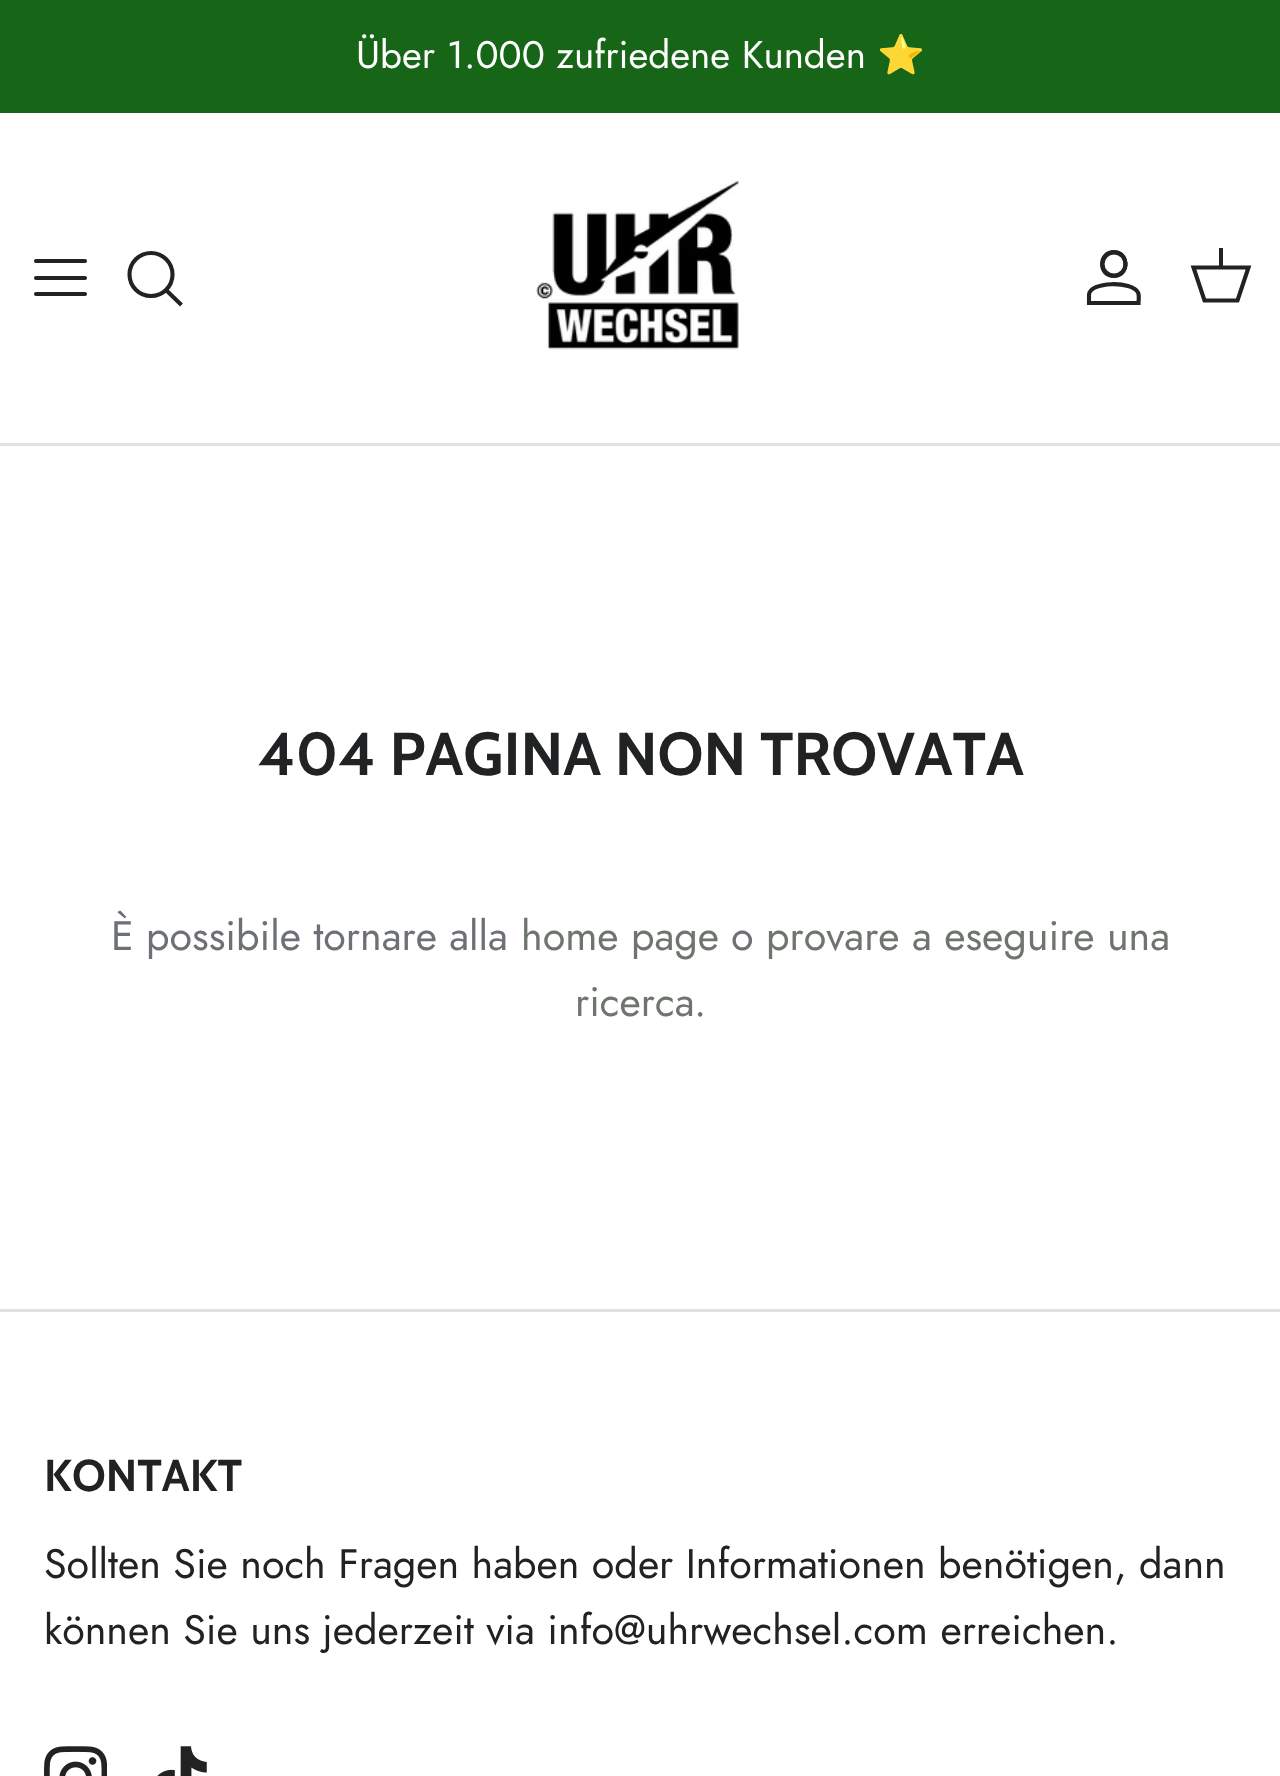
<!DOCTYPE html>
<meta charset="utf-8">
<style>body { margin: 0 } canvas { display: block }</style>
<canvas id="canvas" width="1280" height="1776"></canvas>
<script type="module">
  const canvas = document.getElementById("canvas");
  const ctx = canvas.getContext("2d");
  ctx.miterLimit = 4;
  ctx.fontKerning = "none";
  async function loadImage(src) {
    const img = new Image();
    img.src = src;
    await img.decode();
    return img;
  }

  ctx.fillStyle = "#ffffff";
  ctx.fillRect(0, 0, 1280, 1776);
  ctx.fillStyle = "#176618";
  ctx.fillRect(0, 0, 1280, 113);
  ctx.font = "38.5px Jost";
  ctx.fillStyle = "#ffffff";
  ctx.fillText("Über 1.000 zufriedene Kunden", 356, 68);
  ctx.font = "38.5px Noto Color Emoji";
  ctx.fillText("⭐", 877, 68);
  ctx.fillStyle = "#e2e2e2";
  ctx.fillRect(0, 443, 1280, 3);
  ctx.beginPath();
  ctx.moveTo(36, 278);
  ctx.lineTo(85, 278);
  ctx.moveTo(36, 261);
  ctx.lineTo(85, 261);
  ctx.moveTo(36, 294);
  ctx.lineTo(85, 294);
  ctx.strokeStyle = "#202223";
  ctx.lineWidth = 4.1;
  ctx.lineCap = "round";
  ctx.lineJoin = "round";
  ctx.stroke();
  ctx.beginPath();
  ctx.arc(151, 274.5, 21.5, 0, Math.PI * 2);
  ctx.stroke();
  ctx.beginPath();
  ctx.moveTo(167.5, 291.5);
  ctx.lineTo(180, 303.5);
  ctx.lineCap = "square";
  ctx.lineJoin = "miter";
  ctx.stroke();
  ctx.drawImage(await loadImage("img1.png"), 536, 180, 203, 170);
  ctx.fillStyle = "#202223";
  ctx.beginPath();
  ctx.moveTo(1114, 250);
  ctx.bezierCurveTo(1132, 250, 1132, 278, 1114, 278);
  ctx.bezierCurveTo(1095.5, 278, 1095.5, 250, 1114, 250);
  ctx.closePath();
  ctx.moveTo(1114, 254);
  ctx.bezierCurveTo(1101, 254, 1100.5, 273.5, 1114, 274);
  ctx.bezierCurveTo(1126.5, 274.5, 1127, 254, 1114, 254);
  ctx.closePath();
  ctx.fill("evenodd");
  ctx.beginPath();
  ctx.arc(1114, 264, 11.5, 0, Math.PI * 2);
  ctx.stroke();
  ctx.beginPath();
  ctx.moveTo(1089, 295);
  ctx.bezierCurveTo(1089, 281.5, 1132.5, 280.5, 1138, 292.5);
  ctx.bezierCurveTo(1139.5, 295.5, 1138.5, 300, 1138.5, 303);
  ctx.lineTo(1089, 303);
  ctx.closePath();
  ctx.lineCap = "butt";
  ctx.stroke();
  ctx.beginPath();
  ctx.moveTo(1193.5, 267.5);
  ctx.lineTo(1248.5, 267.5);
  ctx.lineTo(1237.5, 300.5);
  ctx.lineTo(1204.5, 300.5);
  ctx.closePath();
  ctx.stroke();
  ctx.fillRect(1219, 248, 4, 21);
  ctx.font = "bold 60.5px Cabin";
  ctx.fillText("404 PAGINA NON TROVATA", 258, 775);
  ctx.font = "41.25px Jost";
  ctx.fillStyle = "#6d7175";
  ctx.fillText("È possibile tornare alla", 111, 950);
  ctx.fillStyle = "#6e756d";
  ctx.fillText("home page", 521, 950);
  ctx.fillStyle = "#6d7175";
  ctx.fillText("o", 731, 950);
  ctx.fillStyle = "#6e756d";
  ctx.fillText("provare a eseguire una", 766, 950);
  ctx.fillText("ricerca", 575, 1016);
  ctx.fillStyle = "#6d7175";
  ctx.fillText(".", 694, 1016);
  ctx.fillStyle = "#e0e0e0";
  ctx.fillRect(0, 1309, 1280, 3);
  ctx.font = "bold 44.5px Cabin";
  ctx.fillStyle = "#202223";
  ctx.fillText("KONTAKT", 44, 1491);
  ctx.font = "41.25px Jost";
  ctx.fillText("Sollten Sie noch Fragen haben oder Informationen benötigen, dann", 44, 1578);
  ctx.fillText("können Sie uns jederzeit via info@uhrwechsel.com erreichen.", 44, 1644);
  ctx.drawImage(await loadImage("img2.png"), 44, 1746, 63, 30);
  ctx.drawImage(await loadImage("img3.png"), 157, 1746, 50, 30);
</script>
